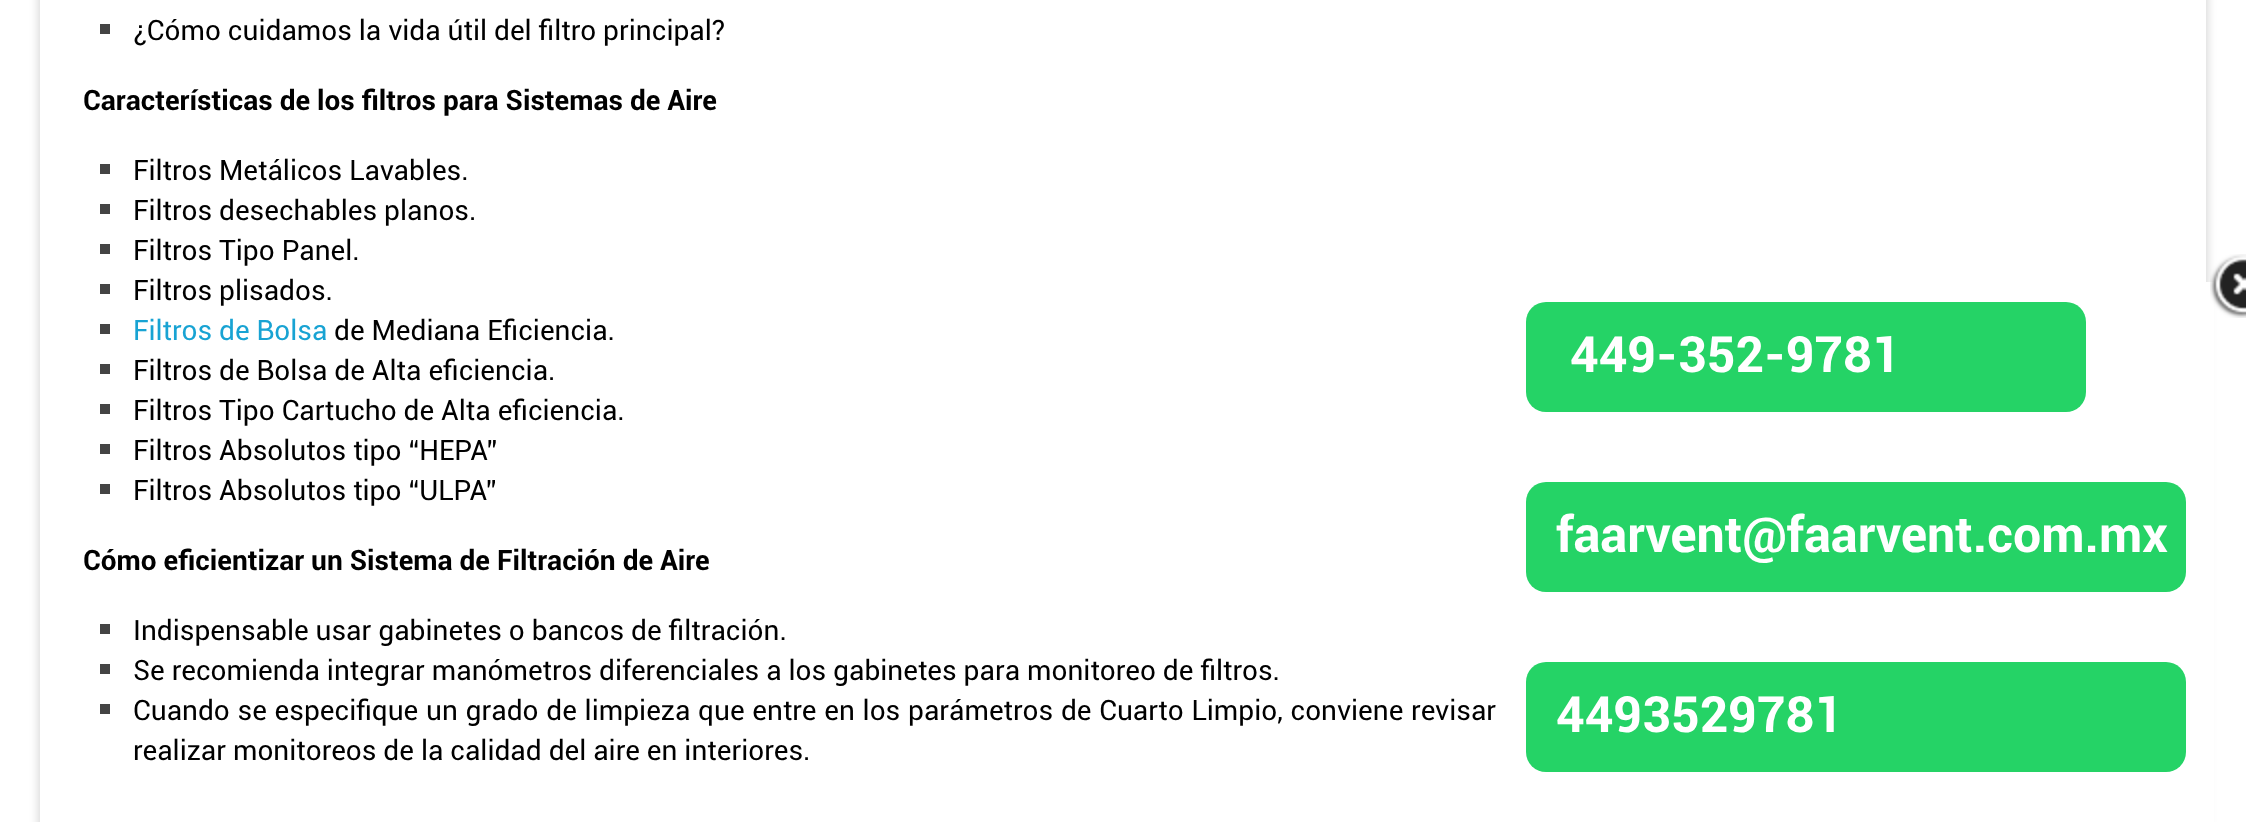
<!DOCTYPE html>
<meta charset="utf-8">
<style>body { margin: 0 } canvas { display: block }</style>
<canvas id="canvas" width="2246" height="822"></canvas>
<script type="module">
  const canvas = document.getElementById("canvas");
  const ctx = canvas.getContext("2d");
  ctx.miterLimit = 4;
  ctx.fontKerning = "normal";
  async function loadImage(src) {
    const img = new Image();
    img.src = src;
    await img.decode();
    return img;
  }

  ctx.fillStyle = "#ffffff";
  ctx.fillRect(0, 0, 2246, 822);
  ctx.save();
  ctx.beginPath();
  ctx.moveTo(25, 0);
  ctx.lineTo(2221, 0);
  ctx.lineTo(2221, 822);
  ctx.lineTo(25, 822);
  ctx.closePath();
  ctx.moveTo(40, -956);
  ctx.lineTo(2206, -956);
  ctx.lineTo(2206, 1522);
  ctx.lineTo(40, 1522);
  ctx.closePath();
  ctx.clip("evenodd");
  ctx.fillStyle = "rgba(0, 0, 0, 0.15)";
  ctx.filter = "blur(4px)";
  ctx.beginPath();
  ctx.rect(38, -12, 2170, 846);
  ctx.fill();
  ctx.filter = "none";
  ctx.restore();
  ctx.fillStyle = "#444444";
  ctx.fillRect(100, 24, 10, 10);
  ctx.font = "28px Roboto";
  ctx.fillStyle = "#000000";
  ctx.fillText("¿Cómo cuidamos la vida útil del filtro principal?", 133, 40);
  ctx.font = "bold 28px Roboto";
  ctx.fillText("Características de los filtros para Sistemas de Aire", 83, 110);
  ctx.fillStyle = "#444444";
  ctx.fillRect(100, 164, 10, 10);
  ctx.font = "28px Roboto";
  ctx.fillStyle = "#000000";
  ctx.fillText("Filtros Metálicos Lavables.", 133, 180);
  ctx.fillStyle = "#444444";
  ctx.fillRect(100, 204, 10, 10);
  ctx.fillStyle = "#000000";
  ctx.fillText("Filtros desechables planos.", 133, 220);
  ctx.fillStyle = "#444444";
  ctx.fillRect(100, 244, 10, 10);
  ctx.fillStyle = "#000000";
  ctx.fillText("Filtros Tipo Panel.", 133, 260);
  ctx.fillStyle = "#444444";
  ctx.fillRect(100, 284, 10, 10);
  ctx.fillStyle = "#000000";
  ctx.fillText("Filtros plisados.", 133, 300);
  ctx.fillStyle = "#444444";
  ctx.fillRect(100, 324, 10, 10);
  ctx.fillStyle = "#18a3d3";
  ctx.fillText("Filtros de Bolsa", 133, 340);
  ctx.fillStyle = "#000000";
  ctx.fillText("de Mediana Eficiencia.", 334, 340);
  ctx.fillStyle = "#444444";
  ctx.fillRect(100, 364, 10, 10);
  ctx.fillStyle = "#000000";
  ctx.fillText("Filtros de Bolsa de Alta eficiencia.", 133, 380);
  ctx.fillStyle = "#444444";
  ctx.fillRect(100, 404, 10, 10);
  ctx.fillStyle = "#000000";
  ctx.fillText("Filtros Tipo Cartucho de Alta eficiencia.", 133, 420);
  ctx.fillStyle = "#444444";
  ctx.fillRect(100, 444, 10, 10);
  ctx.fillStyle = "#000000";
  ctx.fillText("Filtros Absolutos tipo “HEPA”", 133, 460);
  ctx.fillStyle = "#444444";
  ctx.fillRect(100, 484, 10, 10);
  ctx.fillStyle = "#000000";
  ctx.fillText("Filtros Absolutos tipo “ULPA”", 133, 500);
  ctx.font = "bold 28px Roboto";
  ctx.fillText("Cómo eficientizar un Sistema de Filtración de Aire", 83, 570);
  ctx.fillStyle = "#444444";
  ctx.fillRect(100, 624, 10, 10);
  ctx.font = "28px Roboto";
  ctx.fillStyle = "#000000";
  ctx.fillText("Indispensable usar gabinetes o bancos de filtración.", 133, 640);
  ctx.fillStyle = "#444444";
  ctx.fillRect(100, 664, 10, 10);
  ctx.fillStyle = "#000000";
  ctx.fillText("Se recomienda integrar manómetros diferenciales a los gabinetes para monitoreo de filtros.", 133, 680);
  ctx.fillStyle = "#444444";
  ctx.fillRect(100, 704, 10, 10);
  ctx.wordSpacing = "0.8px";
  ctx.fillStyle = "#000000";
  ctx.fillText("Cuando se especifique un grado de limpieza que entre en los parámetros de Cuarto Limpio, conviene revisar", 133, 720);
  ctx.wordSpacing = "0px";
  ctx.fillText("realizar monitoreos de la calidad del aire en interiores.", 133, 760);
  ctx.fillStyle = "#ffffff";
  ctx.fillRect(2206, 282, 8, 540);
  ctx.drawImage(await loadImage("img1.png"), 2210, 254, 36, 64);
  ctx.fillStyle = "#25d366";
  ctx.beginPath();
  ctx.roundRect(1526, 302, 560, 110, 20);
  ctx.fill();
  ctx.font = "bold 50px Roboto";
  ctx.fillStyle = "#ffffff";
  ctx.fillText("449-352-9781", 1570, 372);
  ctx.fillStyle = "#25d366";
  ctx.beginPath();
  ctx.roundRect(1526, 482, 660, 110, 20);
  ctx.fill();
  ctx.fillStyle = "#ffffff";
  ctx.fillText("faarvent@faarvent.com.mx", 1556, 552);
  ctx.fillStyle = "#25d366";
  ctx.beginPath();
  ctx.roundRect(1526, 662, 660, 110, 20);
  ctx.fill();
  ctx.fillStyle = "#ffffff";
  ctx.fillText("4493529781", 1556, 732);
</script>
